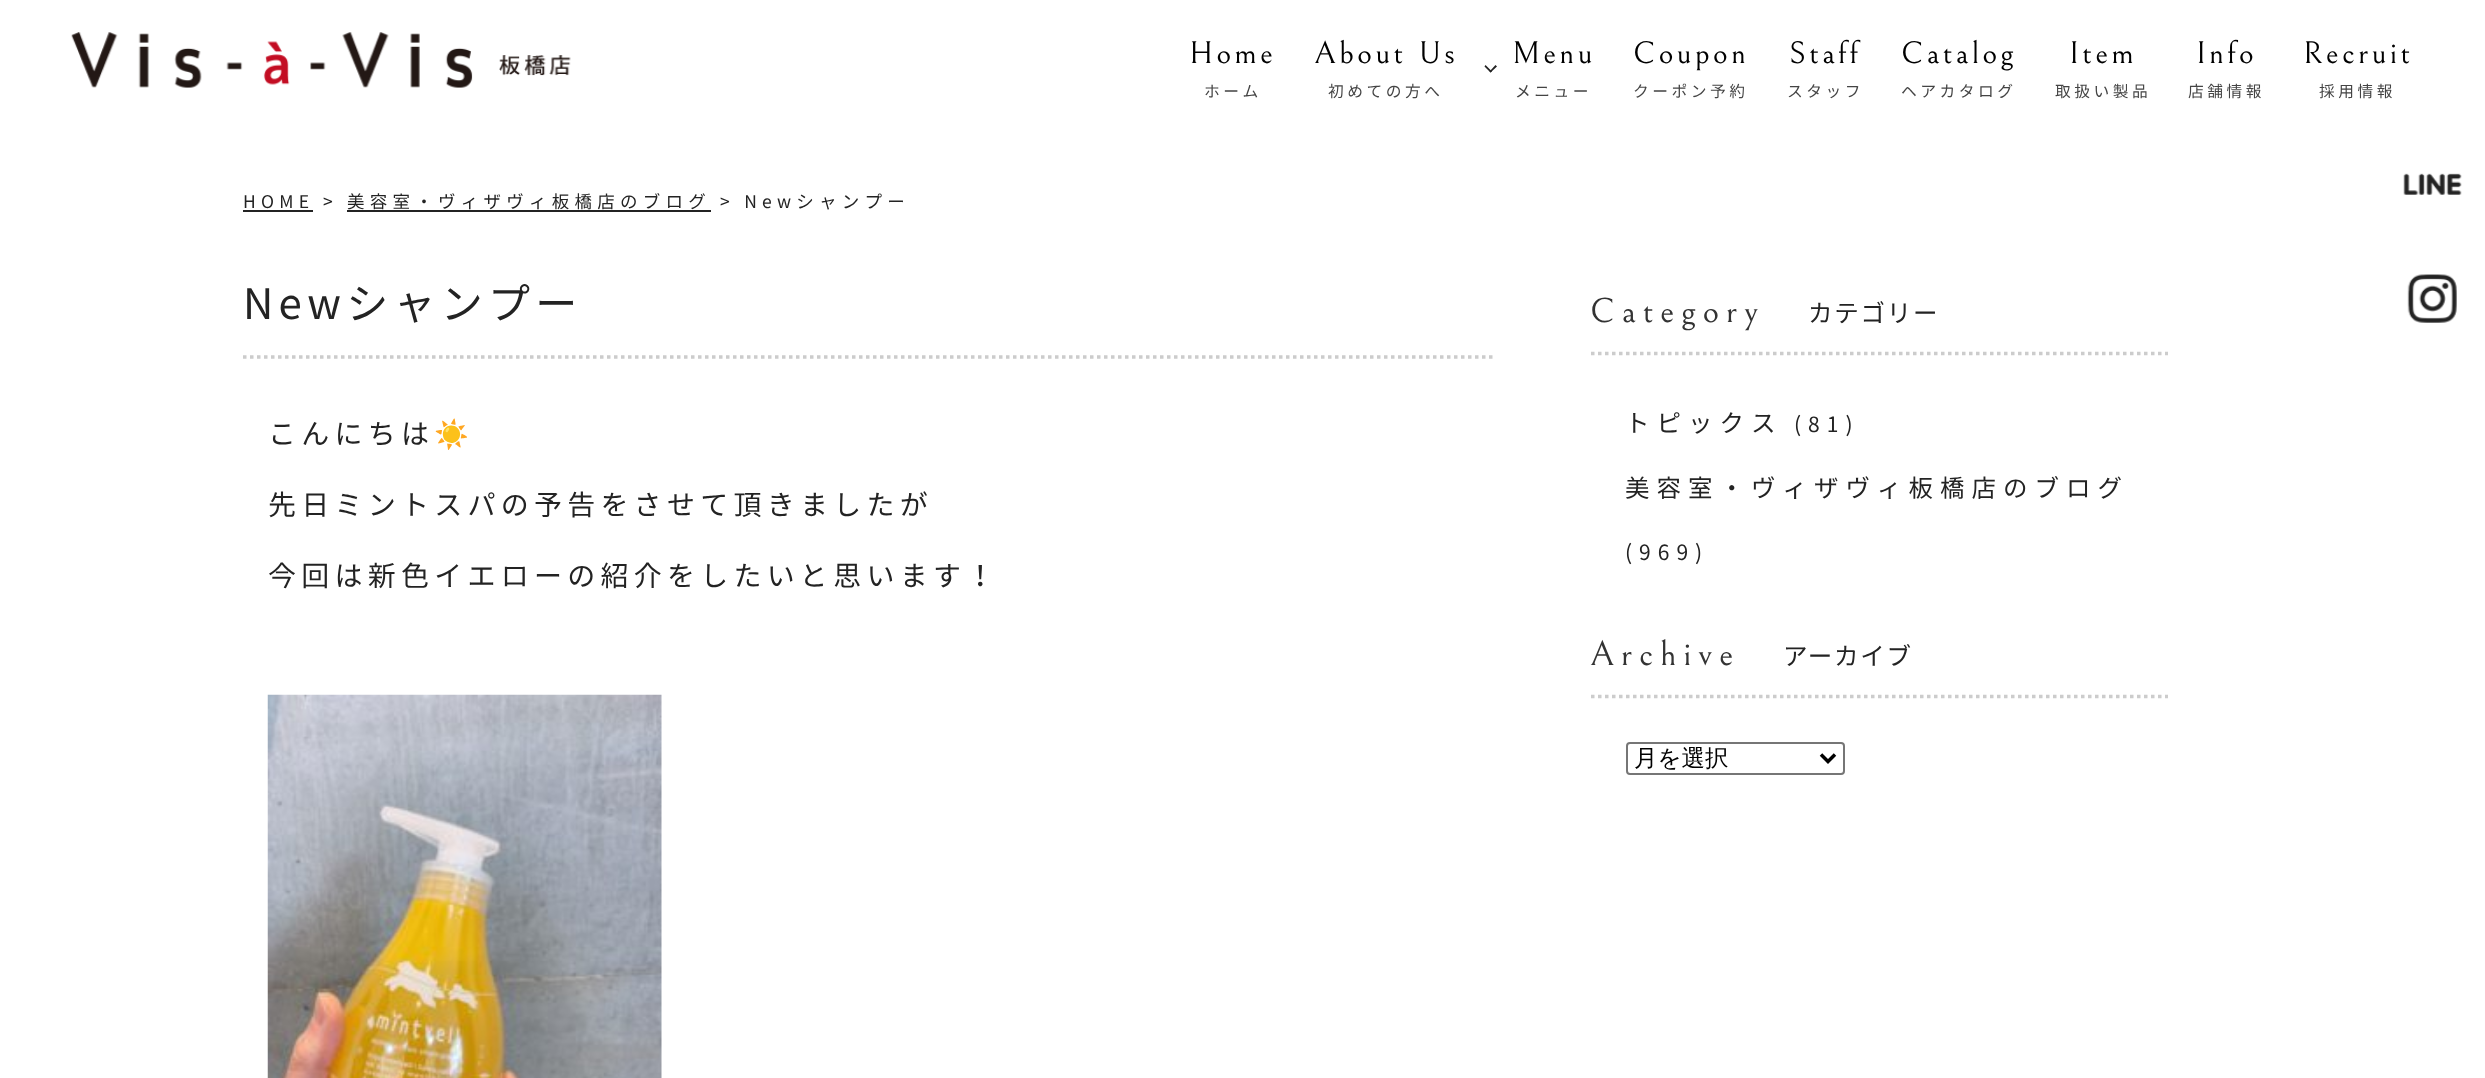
<!DOCTYPE html>
<meta charset="utf-8">
<style>body { margin: 0 } canvas { display: block }</style>
<canvas id="canvas" width="2485" height="1078"></canvas>
<script type="module">
  const canvas = document.getElementById("canvas");
  const ctx = canvas.getContext("2d");
  ctx.miterLimit = 4;
  ctx.fontKerning = "normal";
  async function loadImage(src) {
    const img = new Image();
    img.src = src;
    await img.decode();
    return img;
  }

  ctx.fillStyle = "#ffffff";
  ctx.fillRect(0, 0, 2485, 1078);
  ctx.drawImage(await loadImage("img1.png"), 71, 32, 500, 56);
  ctx.letterSpacing = "3.5px";
  ctx.font = "31.5px Bellefair";
  ctx.fillStyle = "#000000";
  ctx.fillText("Home", 1189, 63);
  ctx.font = "15.75px Noto Sans JP";
  ctx.fillStyle = "#444444";
  ctx.fillText("ホーム", 1204, 97);
  ctx.font = "31.5px Bellefair";
  ctx.fillStyle = "#000000";
  ctx.fillText("About Us", 1314, 63);
  ctx.font = "15.75px Noto Sans JP";
  ctx.fillStyle = "#444444";
  ctx.fillText("初めての方へ", 1328, 97);
  ctx.font = "31.5px Bellefair";
  ctx.fillStyle = "#000000";
  ctx.fillText("Menu", 1512, 63);
  ctx.fillStyle = "#222222";
  ctx.beginPath();
  ctx.moveTo(1495.5, 65);
  ctx.lineTo(1497, 66.5);
  ctx.lineTo(1490.5, 72.5);
  ctx.lineTo(1489.5, 71.5);
  ctx.closePath();
  ctx.fill();
  ctx.beginPath();
  ctx.moveTo(1485.5, 65);
  ctx.lineTo(1492, 71.5);
  ctx.lineTo(1490.5, 72.5);
  ctx.lineTo(1484.5, 66.5);
  ctx.closePath();
  ctx.fill();
  ctx.font = "15.75px Noto Sans JP";
  ctx.fillStyle = "#444444";
  ctx.fillText("メニュー", 1515, 97);
  ctx.font = "31.5px Bellefair";
  ctx.fillStyle = "#000000";
  ctx.fillText("Coupon", 1633, 63);
  ctx.font = "15.75px Noto Sans JP";
  ctx.fillStyle = "#444444";
  ctx.fillText("クーポン予約", 1633, 97);
  ctx.font = "31.5px Bellefair";
  ctx.fillStyle = "#000000";
  ctx.fillText("Staff", 1789, 63);
  ctx.font = "15.75px Noto Sans JP";
  ctx.fillStyle = "#444444";
  ctx.fillText("スタッフ", 1787, 97);
  ctx.font = "31.5px Bellefair";
  ctx.fillStyle = "#000000";
  ctx.fillText("Catalog", 1901, 63);
  ctx.font = "15.75px Noto Sans JP";
  ctx.fillStyle = "#444444";
  ctx.fillText("ヘアカタログ", 1901, 97);
  ctx.font = "31.5px Bellefair";
  ctx.fillStyle = "#000000";
  ctx.fillText("Item", 2069, 63);
  ctx.font = "15.75px Noto Sans JP";
  ctx.fillStyle = "#444444";
  ctx.fillText("取扱い製品", 2055, 97);
  ctx.font = "31.5px Bellefair";
  ctx.fillStyle = "#000000";
  ctx.fillText("Info", 2196, 63);
  ctx.font = "15.75px Noto Sans JP";
  ctx.fillStyle = "#444444";
  ctx.fillText("店舗情報", 2188, 97);
  ctx.font = "31.5px Bellefair";
  ctx.fillStyle = "#000000";
  ctx.fillText("Recruit", 2303, 63);
  ctx.font = "15.75px Noto Sans JP";
  ctx.fillStyle = "#444444";
  ctx.fillText("採用情報", 2319, 97);
  ctx.letterSpacing = "5.25px";
  ctx.font = "17.5px Noto Sans JP";
  ctx.fillStyle = "#232323";
  ctx.fillText("HOME", 243, 208);
  ctx.fillRect(243, 210, 70, 2);
  ctx.fillText(">", 323, 208);
  ctx.fillText("美容室・ヴィザヴィ板橋店のブログ", 347, 208);
  ctx.fillRect(347, 210, 364, 2);
  ctx.fillText("> Newシャンプー", 720, 208);
  ctx.beginPath();
  ctx.moveTo(243, 357);
  ctx.lineTo(1494.5, 357);
  ctx.strokeStyle = "#cccccc";
  ctx.lineWidth = 3.5;
  ctx.setLineDash([3.5, 3.5]);
  ctx.stroke();
  ctx.font = "42px Noto Sans JP";
  ctx.fillText("Newシャンプー", 243, 319);
  ctx.font = "28px Noto Sans JP";
  ctx.fillText("こんにちは", 268, 444);
  ctx.font = "28px Noto Color Emoji";
  ctx.fillText("☀️", 434, 444);
  ctx.font = "28px Noto Sans JP";
  ctx.fillText("先日ミントスパの予告をさせて頂きましたが", 268, 515);
  ctx.fillText("今回は新色イエローの紹介をしたいと思います！", 268, 586);
  ctx.drawImage(await loadImage("img2.png"), 267, 694, 395, 384);
  ctx.beginPath();
  ctx.moveTo(1591, 353.5);
  ctx.lineTo(2168, 353.5);
  ctx.stroke();
  ctx.letterSpacing = "7px";
  ctx.font = "35px Bellefair";
  ctx.fillStyle = "#333333";
  ctx.fillText("Category", 1590, 322);
  ctx.letterSpacing = "1.75px";
  ctx.font = "24.5px Noto Sans JP";
  ctx.fillStyle = "#232323";
  ctx.fillText("カテゴリー", 1808, 322);
  ctx.letterSpacing = "7px";
  ctx.fillText("トピックス", 1625, 432);
  ctx.font = "21px Noto Sans JP";
  ctx.fillText("(81)", 1794, 432);
  ctx.font = "24.5px Noto Sans JP";
  ctx.fillText("美容室・ヴィザヴィ板橋店のブログ", 1625, 497);
  ctx.font = "21px Noto Sans JP";
  ctx.fillText("(969)", 1625, 560);
  ctx.beginPath();
  ctx.moveTo(1591, 696.5);
  ctx.lineTo(2168, 696.5);
  ctx.stroke();
  ctx.font = "35px Bellefair";
  ctx.fillStyle = "#333333";
  ctx.fillText("Archive", 1590, 665);
  ctx.letterSpacing = "1.75px";
  ctx.font = "24.5px Noto Sans JP";
  ctx.fillStyle = "#232323";
  ctx.fillText("アーカイブ", 1783, 665);
  ctx.beginPath();
  ctx.roundRect(1627, 743, 217, 31, 3);
  ctx.strokeStyle = "#767676";
  ctx.lineWidth = 2;
  ctx.setLineDash([]);
  ctx.stroke();
  ctx.beginPath();
  ctx.moveTo(1821, 754.5);
  ctx.lineTo(1828, 761.5);
  ctx.lineTo(1835, 754.5);
  ctx.strokeStyle = "#000000";
  ctx.lineWidth = 3.5;
  ctx.stroke();
  ctx.letterSpacing = "0px";
  ctx.font = "500 23.5px WenQuanYi Zen Hei";
  ctx.fillStyle = "#000000";
  ctx.fillText("月を選択", 1634, 766);
  ctx.drawImage(await loadImage("img3.png"), 2403, 173, 59, 22);
  ctx.drawImage(await loadImage("img4.png"), 2407, 274, 50, 49);
</script>
